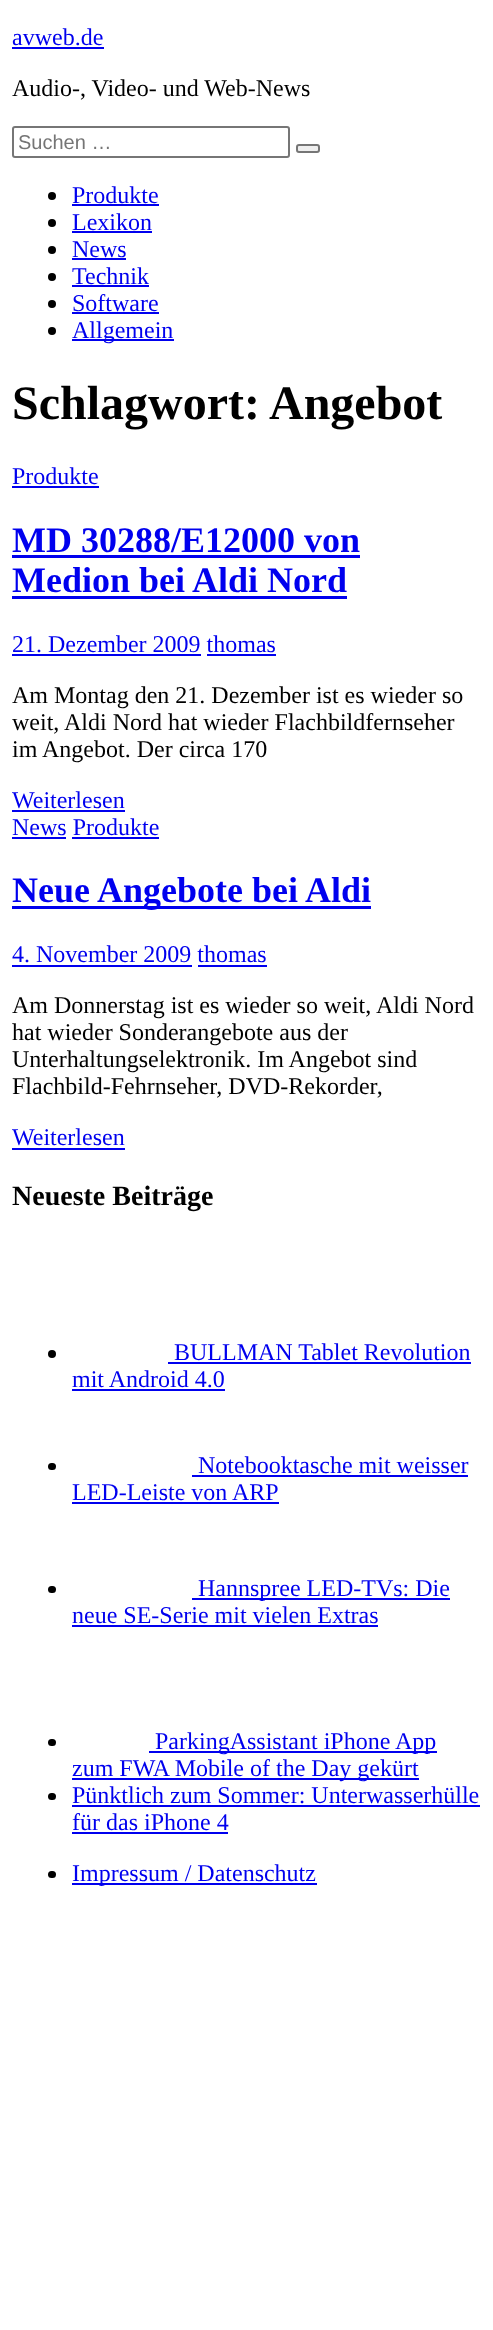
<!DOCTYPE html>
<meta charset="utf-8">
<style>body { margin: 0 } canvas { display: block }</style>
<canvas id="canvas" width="493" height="2330"></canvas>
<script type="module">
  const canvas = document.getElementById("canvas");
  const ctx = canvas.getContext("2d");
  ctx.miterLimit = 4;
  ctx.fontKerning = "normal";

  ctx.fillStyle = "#ffffff";
  ctx.fillRect(0, 0, 493, 2330);
  ctx.font = "24px Liberation Serif";
  ctx.fillStyle = "#0000ee";
  ctx.fillText("avweb.de", 12, 45);
  ctx.fillRect(12, 47, 92, 2);
  ctx.fillStyle = "#000000";
  ctx.fillText("Audio-, Video- und Web-News", 12, 96);
  ctx.beginPath();
  ctx.roundRect(13, 127, 276, 30, 2);
  ctx.strokeStyle = "#767676";
  ctx.lineWidth = 2;
  ctx.stroke();
  ctx.font = "20px Liberation Sans";
  ctx.fillStyle = "#757575";
  ctx.fillText("Suchen …", 18, 149);
  ctx.fillStyle = "#efefef";
  ctx.beginPath();
  ctx.roundRect(297, 145, 22, 7, 2);
  ctx.fill();
  ctx.stroke();
  ctx.fillStyle = "#000000";
  ctx.beginPath();
  ctx.arc(52, 196, 4, 0, Math.PI * 2);
  ctx.fill();
  ctx.font = "24px Liberation Serif";
  ctx.fillStyle = "#0000ee";
  ctx.fillText("Produkte", 72, 203);
  ctx.fillRect(72, 204, 87, 2);
  ctx.fillStyle = "#000000";
  ctx.beginPath();
  ctx.arc(52, 223, 4, 0, Math.PI * 2);
  ctx.fill();
  ctx.fillStyle = "#0000ee";
  ctx.fillText("Lexikon", 72, 230);
  ctx.fillRect(72, 231, 80, 2);
  ctx.fillStyle = "#000000";
  ctx.beginPath();
  ctx.arc(52, 250, 4, 0, Math.PI * 2);
  ctx.fill();
  ctx.fillStyle = "#0000ee";
  ctx.fillText("News", 72, 257);
  ctx.fillRect(72, 258, 54, 2);
  ctx.fillStyle = "#000000";
  ctx.beginPath();
  ctx.arc(52, 277, 4, 0, Math.PI * 2);
  ctx.fill();
  ctx.fillStyle = "#0000ee";
  ctx.fillText("Technik", 72, 284);
  ctx.fillRect(72, 285, 77, 2);
  ctx.fillStyle = "#000000";
  ctx.beginPath();
  ctx.arc(52, 304, 4, 0, Math.PI * 2);
  ctx.fill();
  ctx.fillStyle = "#0000ee";
  ctx.fillText("Software", 72, 311);
  ctx.fillRect(72, 312, 87, 2);
  ctx.fillStyle = "#000000";
  ctx.beginPath();
  ctx.arc(52, 331, 4, 0, Math.PI * 2);
  ctx.fill();
  ctx.fillStyle = "#0000ee";
  ctx.fillRect(72, 339, 102, 2);
  ctx.fillText("Allgemein", 72, 338);
  ctx.font = "bold 48px Liberation Serif";
  ctx.fillStyle = "#000000";
  ctx.fillText("Schlagwort:", 12, 419);
  ctx.fillText("Angebot", 269, 419);
  ctx.font = "24px Liberation Serif";
  ctx.fillStyle = "#0000ee";
  ctx.fillText("Produkte", 12, 484);
  ctx.fillRect(12, 486, 87, 2);
  ctx.font = "bold 36px Liberation Serif";
  ctx.fillText("MD 30288/E12000 von", 12, 552);
  ctx.fillRect(12, 555, 348, 3);
  ctx.fillText("Medion bei Aldi Nord", 12, 592);
  ctx.fillRect(12, 596, 335, 3);
  ctx.font = "24px Liberation Serif";
  ctx.fillText("21. Dezember 2009 thomas", 12, 652);
  ctx.fillRect(12, 654, 189, 2);
  ctx.fillRect(207, 654, 69, 2);
  ctx.fillStyle = "#000000";
  ctx.fillText("Am Montag den 21. Dezember ist es wieder so", 12, 703);
  ctx.fillText("weit, Aldi Nord hat wieder Flachbildfernseher", 12, 730);
  ctx.fillText("im Angebot. Der circa 170", 12, 757);
  ctx.fillStyle = "#0000ee";
  ctx.fillText("Weiterlesen", 12, 808);
  ctx.fillRect(12, 810, 113, 2);
  ctx.fillText("News Produkte", 12, 835);
  ctx.fillRect(12, 837, 54, 2);
  ctx.fillRect(72, 837, 87, 2);
  ctx.fillRect(12, 906, 359, 3);
  ctx.font = "bold 36px Liberation Serif";
  ctx.fillText("Neue Angebote bei Aldi", 12, 902);
  ctx.font = "24px Liberation Serif";
  ctx.fillText("4. November 2009 thomas", 12, 962);
  ctx.fillRect(12, 965, 180, 2);
  ctx.fillRect(198, 965, 69, 2);
  ctx.fillStyle = "#000000";
  ctx.fillText("Am Donnerstag ist es wieder so weit, Aldi Nord", 12, 1013);
  ctx.fillText("hat wieder Sonderangebote aus der", 12, 1040);
  ctx.fillText("Unterhaltungselektronik. Im Angebot sind", 12, 1067);
  ctx.fillText("Flachbild-Fehrnseher, DVD-Rekorder,", 12, 1094);
  ctx.fillStyle = "#0000ee";
  ctx.fillText("Weiterlesen", 12, 1145);
  ctx.fillRect(12, 1148, 113, 2);
  ctx.font = "bold 28px Liberation Serif";
  ctx.fillStyle = "#000000";
  ctx.fillText("Neueste Beiträge", 12, 1205);
  ctx.beginPath();
  ctx.arc(52, 1354, 4, 0, Math.PI * 2);
  ctx.fill();
  ctx.font = "24px Liberation Serif";
  ctx.fillStyle = "#0000ee";
  ctx.fillText("BULLMAN Tablet Revolution", 174, 1360);
  ctx.fillRect(168, 1362, 303, 2);
  ctx.fillText("mit Android 4.0", 72, 1387);
  ctx.fillRect(72, 1389, 153, 2);
  ctx.fillStyle = "#000000";
  ctx.beginPath();
  ctx.roundRect(48, 1463, 8, 7, 3.5);
  ctx.fill();
  ctx.fillStyle = "#0000ee";
  ctx.fillText("Notebooktasche mit weisser", 198, 1473);
  ctx.fillRect(192, 1475, 276, 2);
  ctx.fillText("LED-Leiste von ARP", 72, 1500);
  ctx.fillRect(72, 1502, 207, 2);
  ctx.fillStyle = "#000000";
  ctx.beginPath();
  ctx.roundRect(48, 1586, 8, 7, 3.5);
  ctx.fill();
  ctx.fillStyle = "#0000ee";
  ctx.fillRect(192, 1598, 258, 2);
  ctx.fillText("Hannspree LED-TVs: Die", 198, 1596);
  ctx.fillText("neue SE-Serie mit vielen Extras", 72, 1623);
  ctx.fillRect(72, 1625, 306, 2);
  ctx.fillStyle = "#000000";
  ctx.beginPath();
  ctx.roundRect(48, 1739, 8, 7, 3.5);
  ctx.fill();
  ctx.fillStyle = "#0000ee";
  ctx.fillRect(149, 1751, 288, 2);
  ctx.fillText("ParkingAssistant iPhone App", 155, 1749);
  ctx.fillRect(72, 1778, 347, 2);
  ctx.fillText("zum FWA Mobile of the Day gekürt", 72, 1776);
  ctx.fillStyle = "#000000";
  ctx.beginPath();
  ctx.roundRect(48, 1793, 8, 7, 3.5);
  ctx.fill();
  ctx.fillStyle = "#0000ee";
  ctx.fillText("Pünktlich zum Sommer: Unterwasserhülle", 72, 1803);
  ctx.fillRect(72, 1805, 408, 2);
  ctx.fillText("für das iPhone 4", 72, 1830);
  ctx.fillRect(72, 1832, 156, 2);
  ctx.fillStyle = "#000000";
  ctx.beginPath();
  ctx.roundRect(48, 1871, 8, 7, 3.5);
  ctx.fill();
  ctx.fillStyle = "#0000ee";
  ctx.fillRect(72, 1883, 245, 2);
  ctx.fillText("Impressum / Datenschutz", 72, 1881);
</script>
